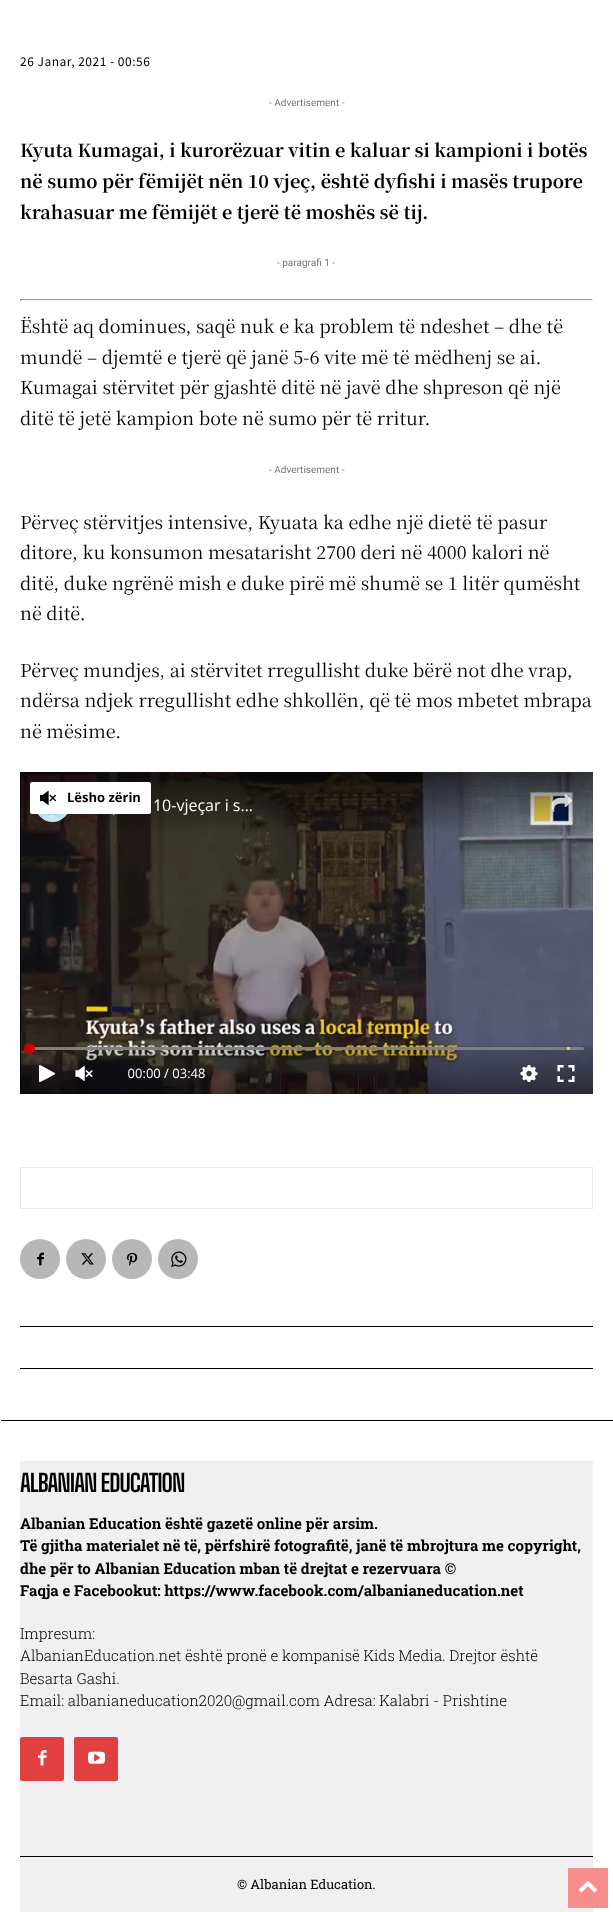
<!DOCTYPE html>
<meta charset="utf-8">
<style>body { margin: 0 } canvas { display: block }</style>
<canvas id="canvas" width="613" height="1912"></canvas>
<script type="module">
  const canvas = document.getElementById("canvas");
  const ctx = canvas.getContext("2d");
  ctx.miterLimit = 4;
  ctx.fontKerning = "normal";
  async function loadImage(src) {
    const img = new Image();
    img.src = src;
    await img.decode();
    return img;
  }

  ctx.fillStyle = "#ffffff";
  ctx.fillRect(0, 0, 613, 1912);
  ctx.letterSpacing = "0.5px";
  ctx.font = "12px Noto Sans JP";
  ctx.fillStyle = "#000000";
  ctx.fillText("26 Janar, 2021 - 00:56", 20, 66);
  ctx.letterSpacing = "0px";
  ctx.font = "10px Roboto";
  ctx.fillStyle = "#767676";
  ctx.fillText("- Advertisement -", 269, 106);
  ctx.font = "bold 18px Noto Serif JP";
  ctx.fillStyle = "#000000";
  ctx.fillText("Kyuta Kumagai, i kurorëzuar vitin e kaluar si kampioni i botës", 20, 157);
  ctx.fillText("në sumo për fëmijët nën 10 vjeç, është dyfishi i masës trupore", 20, 188);
  ctx.fillText("krahasuar me fëmijët e tjerë të moshës së tij.", 20, 219);
  ctx.font = "10px Roboto";
  ctx.fillStyle = "#767676";
  ctx.fillText("- paragrafi 1 -", 277, 266);
  ctx.fillStyle = "#9f9f9f";
  ctx.fillRect(20, 299, 573, 1);
  ctx.fillStyle = "#eeeeee";
  ctx.fillRect(592, 299, 1, 2);
  ctx.fillRect(20, 300, 573, 1);
  ctx.fillStyle = "#9f9f9f";
  ctx.fillRect(20, 299, 1, 2);
  ctx.font = "18px Noto Serif JP";
  ctx.fillStyle = "#000000";
  ctx.fillText("Është aq dominues, saqë nuk e ka problem të ndeshet – dhe të", 20, 333);
  ctx.fillText("mundë – djemtë e tjerë që janë 5-6 vite më të mëdhenj se ai.", 20, 364);
  ctx.fillText("Kumagai stërvitet për gjashtë ditë në javë dhe shpreson që një", 20, 394);
  ctx.fillText("ditë të jetë kampion bote në sumo për të rritur.", 20, 425);
  ctx.font = "10px Roboto";
  ctx.fillStyle = "#767676";
  ctx.fillText("- Advertisement -", 269, 473);
  ctx.font = "18px Noto Serif JP";
  ctx.fillStyle = "#000000";
  ctx.fillText("Përveç stërvitjes intensive, Kyuata ka edhe një dietë të pasur", 20, 529);
  ctx.fillText("ditore, ku konsumon mesatarisht 2700 deri në 4000 kalori në", 20, 559);
  ctx.fillText("ditë, duke ngrënë mish e duke pirë më shumë se 1 litër qumësht", 20, 590);
  ctx.fillText("në ditë.", 20, 620);
  ctx.fillText("Përveç mundjes, ai stërvitet rregullisht duke bërë not dhe vrap,", 20, 677);
  ctx.fillText("ndërsa ndjek rregullisht edhe shkollën, që të mos mbetet mbrapa", 20, 707);
  ctx.fillText("në mësime.", 20, 738);
  ctx.drawImage(await loadImage("img1.png"), 20, 772, 573, 322);
  ctx.strokeStyle = "#e8e8e8";
  ctx.strokeRect(20.5, 1167.5, 572, 41);
  ctx.fillStyle = "#b7b7b7";
  ctx.beginPath();
  ctx.arc(40, 1259, 20, 0, Math.PI * 2);
  ctx.fill();
  ctx.drawImage(await loadImage("img2.png"), 37, 1252, 7, 14);
  ctx.beginPath();
  ctx.arc(86, 1259, 20, 0, Math.PI * 2);
  ctx.fill();
  ctx.drawImage(await loadImage("img3.png"), 81, 1253, 13, 12);
  ctx.beginPath();
  ctx.arc(132, 1259, 20, 0, Math.PI * 2);
  ctx.fill();
  ctx.drawImage(await loadImage("img4.png"), 127, 1252, 11, 14);
  ctx.beginPath();
  ctx.arc(178, 1259, 20, 0, Math.PI * 2);
  ctx.fill();
  ctx.drawImage(await loadImage("img5.png"), 171, 1251, 16, 16);
  ctx.fillStyle = "#000000";
  ctx.fillRect(20, 1326, 573, 1);
  ctx.fillRect(20, 1368, 573, 1);
  ctx.fillRect(1, 1420, 612, 1);
  ctx.fillStyle = "#f0f0f0";
  ctx.fillRect(20, 1461, 573, 451);
  ctx.letterSpacing = "-1px";
  ctx.font = "bold 24px Big Shoulders Text";
  ctx.fillStyle = "#000000";
  ctx.fillText("ALBANIAN EDUCATION", 20, 1492);
  ctx.letterSpacing = "0px";
  ctx.font = "bold 15px Roboto Slab";
  ctx.fillText("Albanian Education është gazetë online për arsim.", 20, 1529);
  ctx.fillText("Të gjitha materialet në të, përfshirë fotografitë, janë të mbrojtura me copyright,", 20, 1551);
  ctx.fillText("dhe për to Albanian Education mban të drejtat e rezervuara ©", 20, 1574);
  ctx.fillText("Faqja e Facebookut: https://www.facebook.com/albanianeducation.net", 20, 1596);
  ctx.font = "300 15px Roboto Slab";
  ctx.fillText("Impresum:", 20, 1639);
  ctx.fillText("AlbanianEducation.net është pronë e kompanisë Kids Media. Drejtor është", 20, 1661);
  ctx.fillText("Besarta Gashi.", 20, 1684);
  ctx.fillText("Email: albanianeducation2020@gmail.com Adresa: Kalabri - Prishtine", 20, 1706);
  ctx.fillStyle = "#e04040";
  ctx.beginPath();
  ctx.roundRect(20, 1737, 44, 44, 2);
  ctx.fill();
  ctx.drawImage(await loadImage("img6.png"), 38, 1750, 9, 16);
  ctx.beginPath();
  ctx.roundRect(74, 1737, 44, 44, 2);
  ctx.fill();
  ctx.drawImage(await loadImage("img7.png"), 88, 1751, 17, 13);
  ctx.fillStyle = "#000000";
  ctx.fillRect(20, 1856, 573, 1);
  ctx.font = "13px Roboto Slab";
  ctx.fillText("© Albanian Education.", 237, 1889);
  ctx.fillStyle = "#f78c8c";
  ctx.fillRect(568, 1868, 40, 40);
  ctx.drawImage(await loadImage("img8.png"), 579, 1880, 18, 13);
</script>
